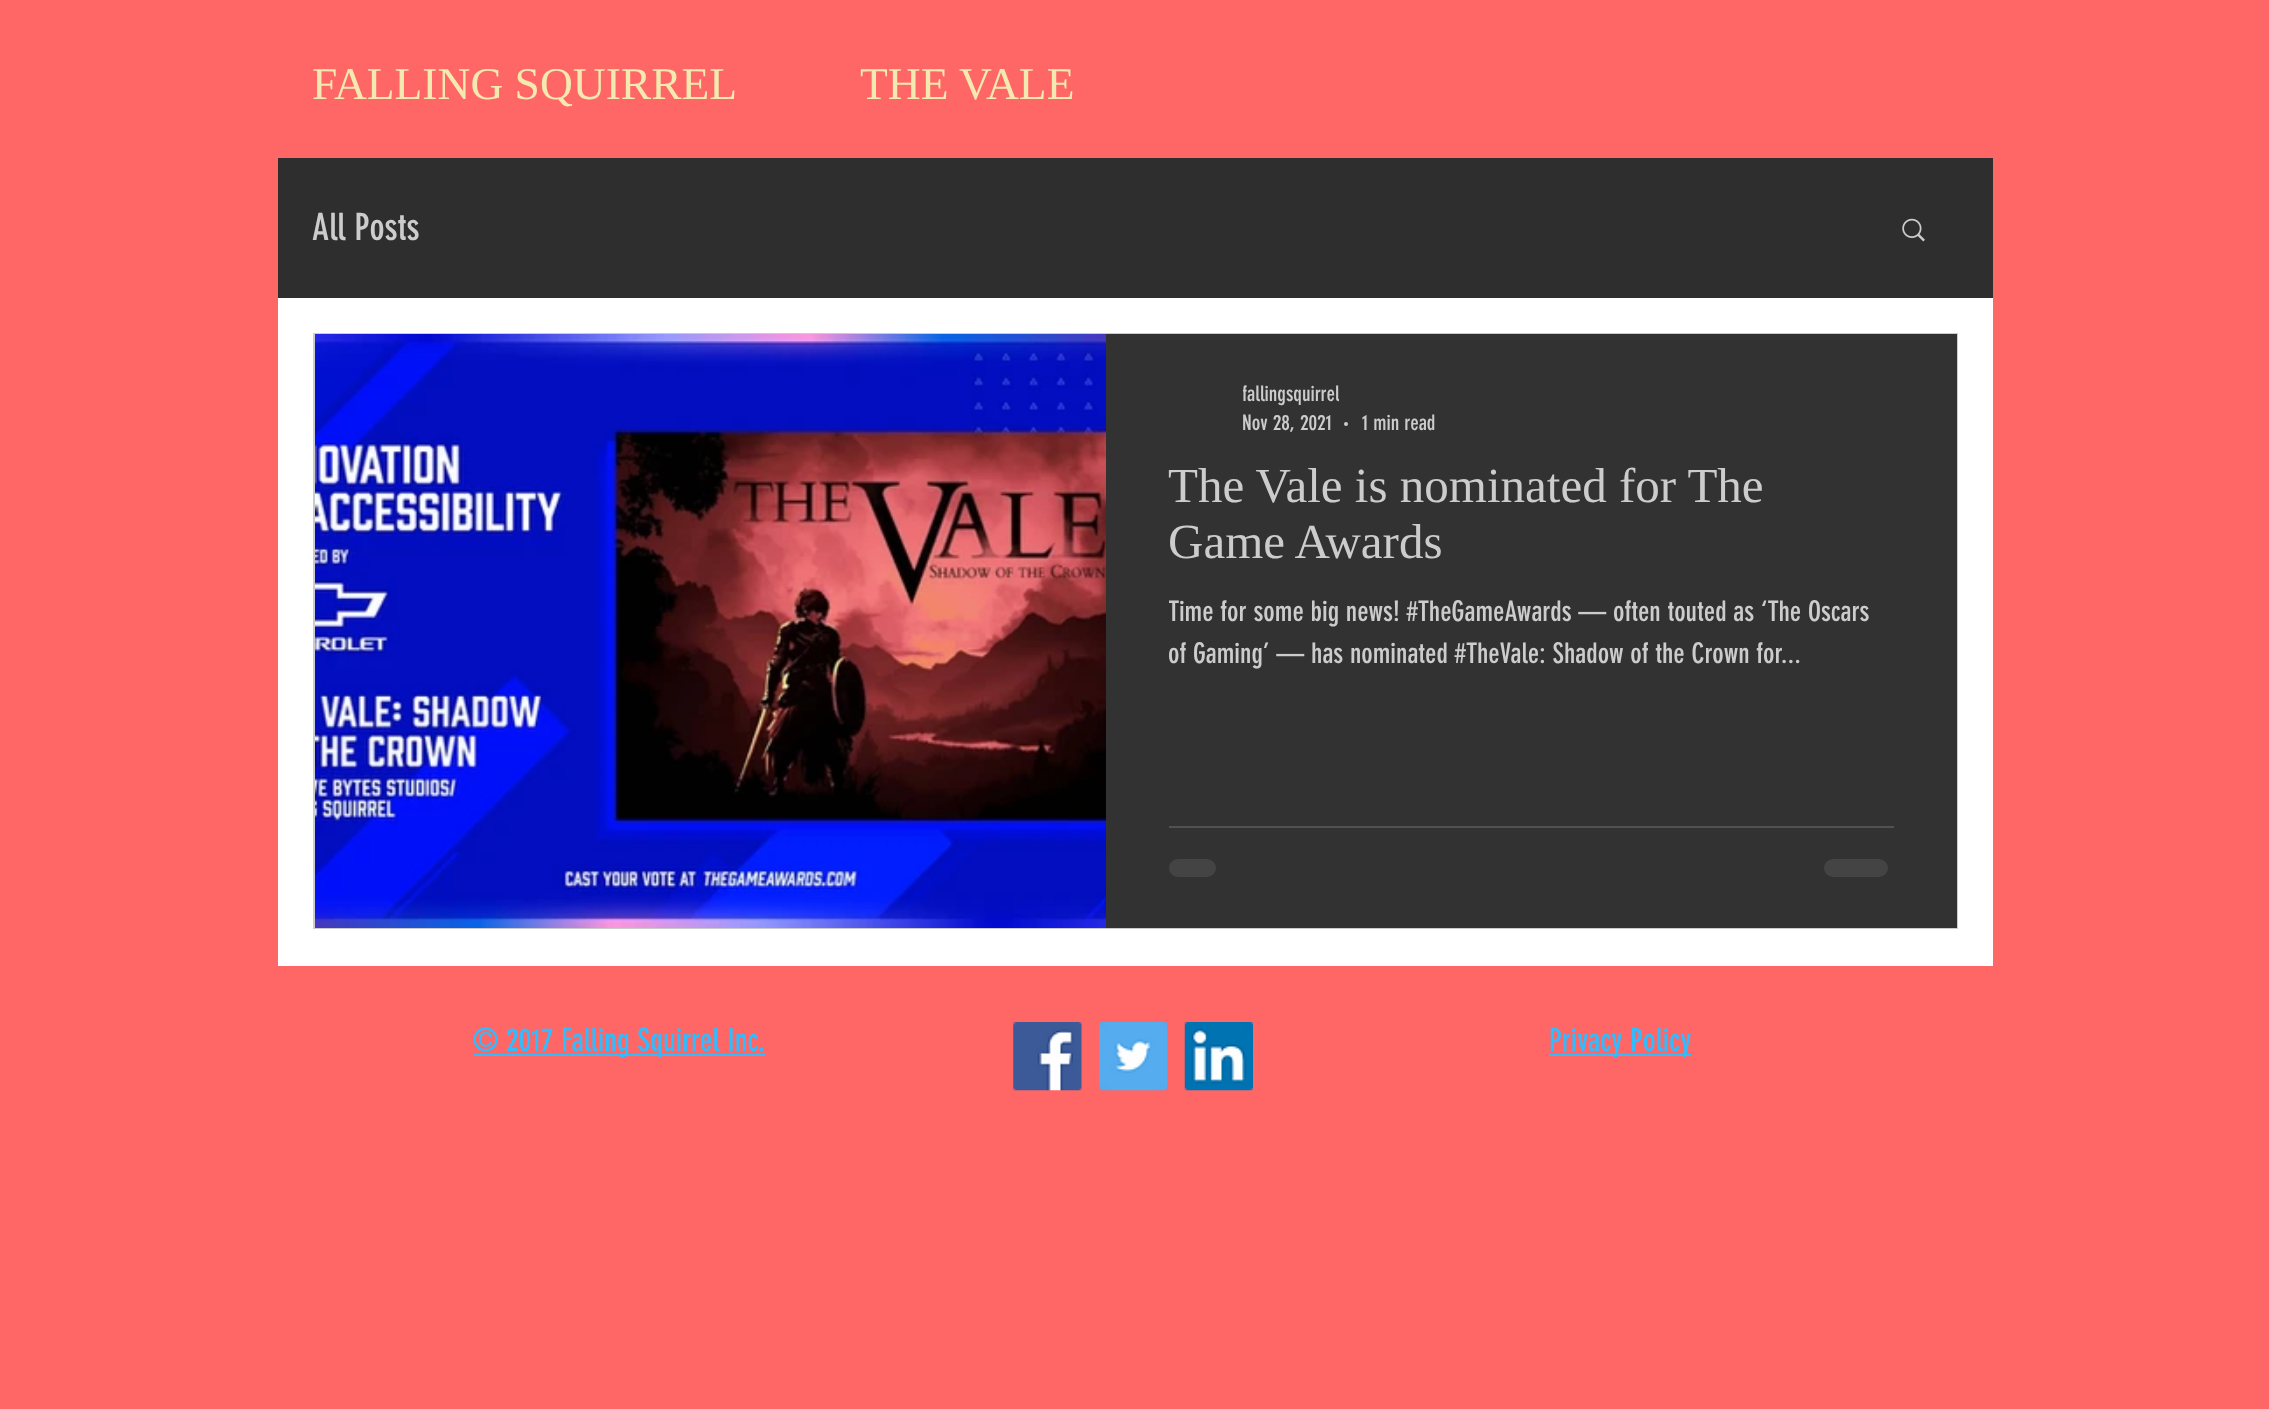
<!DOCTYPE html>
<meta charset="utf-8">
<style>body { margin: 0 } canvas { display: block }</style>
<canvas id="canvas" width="2269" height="1409"></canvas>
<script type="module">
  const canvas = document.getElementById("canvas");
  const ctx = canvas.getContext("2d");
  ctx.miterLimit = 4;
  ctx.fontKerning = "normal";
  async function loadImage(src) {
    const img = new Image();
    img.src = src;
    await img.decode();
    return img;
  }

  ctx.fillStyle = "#ff6666";
  ctx.fillRect(0, 0, 2269, 1409);
  ctx.font = "45.5px Liberation Serif";
  ctx.fillStyle = "#f4eab1";
  ctx.fillText("FALLING SQUIRREL", 312, 99);
  ctx.fillText("THE VALE", 860, 99);
  ctx.fillStyle = "#ffffff";
  ctx.fillRect(278, 298, 1715, 668);
  ctx.fillStyle = "#2f2e2e";
  ctx.fillRect(278, 158, 1715, 140);
  ctx.font = "37px 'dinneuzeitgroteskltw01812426'";
  ctx.fillStyle = "#cccccc";
  ctx.fillText("All Posts", 312, 240);
  ctx.drawImage(await loadImage("img1.png"), 1902, 218, 23, 24);
  ctx.strokeStyle = "#cccccc";
  ctx.lineWidth = 2;
  ctx.strokeRect(314, 334, 1643, 594);
  ctx.drawImage(await loadImage("img2.png"), 315, 334, 791, 594);
  ctx.fillStyle = "#323232";
  ctx.fillRect(1106, 334, 851, 594);
  ctx.save();
  ctx.beginPath();
  ctx.rect(1243, 382, 96, 24);
  ctx.clip();
  ctx.font = "21px 'dinneuzeitgroteskltw01812426'";
  ctx.fillStyle = "#cccccc";
  ctx.fillText("fallingsquirrel", 1242, 401);
  ctx.restore();
  ctx.font = "21px 'dinneuzeitgroteskltw01812426'";
  ctx.fillStyle = "#cccccc";
  ctx.fillText("Nov 28, 2021", 1242, 430);
  ctx.beginPath();
  ctx.arc(1346, 424, 2, 0, Math.PI * 2);
  ctx.fill();
  ctx.fillText("1 min read", 1362, 430);
  ctx.font = "49px Liberation Serif";
  ctx.fillText("The Vale is nominated for The", 1168, 502);
  ctx.fillText("Game Awards", 1168, 558);
  ctx.save();
  ctx.beginPath();
  ctx.rect(1169, 592, 725, 84);
  ctx.clip();
  ctx.font = "28px 'dinneuzeitgroteskltw01812426'";
  ctx.fillText("Time for some big news! #TheGameAwards — often touted as ‘The Oscars", 1168, 621);
  ctx.restore();
  ctx.font = "28px 'dinneuzeitgroteskltw01812426'";
  ctx.fillText("of Gaming’ — has nominated #TheVale: Shadow of the Crown for...", 1168, 663);
  ctx.fillStyle = "#515151";
  ctx.fillRect(1169, 826, 725, 2);
  ctx.fillStyle = "#444444";
  ctx.beginPath();
  ctx.roundRect(1169, 859, 47, 18, 9);
  ctx.fill();
  ctx.beginPath();
  ctx.roundRect(1824, 859, 64, 18, 9);
  ctx.fill();
  ctx.fillStyle = "#30bdff";
  ctx.fillRect(474, 1054, 291, 2);
  ctx.font = "31.5px 'dinneuzeitgroteskltw01812426'";
  ctx.fillText("© 2017 Falling Squirrel Inc.", 473, 1051);
  ctx.drawImage(await loadImage("img3.png"), 1013, 1022, 69, 69);
  ctx.drawImage(await loadImage("img4.png"), 1099, 1022, 69, 69);
  ctx.drawImage(await loadImage("img5.png"), 1184, 1022, 69, 69);
  ctx.fillRect(1549, 1054, 142, 2);
  ctx.fillText("Privacy Policy", 1549, 1051);
</script>
